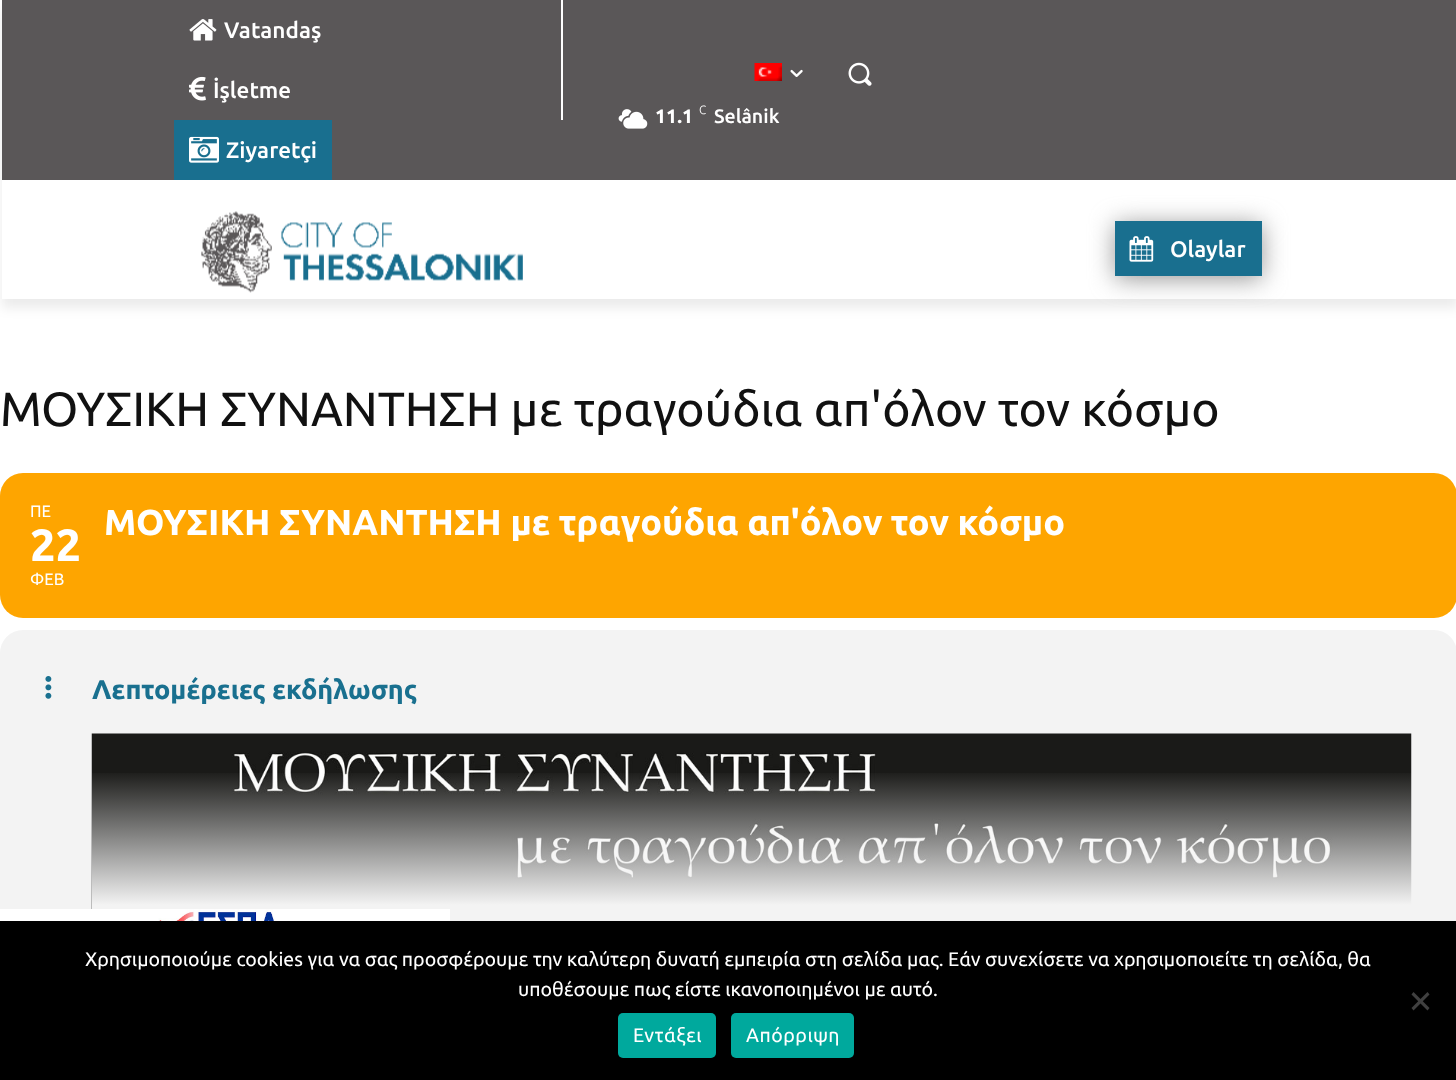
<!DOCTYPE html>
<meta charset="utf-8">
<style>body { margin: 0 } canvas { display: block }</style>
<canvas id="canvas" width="1456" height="1080"></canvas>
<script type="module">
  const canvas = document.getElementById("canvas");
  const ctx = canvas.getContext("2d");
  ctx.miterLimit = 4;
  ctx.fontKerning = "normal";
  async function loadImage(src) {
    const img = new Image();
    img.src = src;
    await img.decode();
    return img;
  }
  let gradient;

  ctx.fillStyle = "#ffffff";
  ctx.fillRect(0, 0, 1456, 1080);
  ctx.fillStyle = "#5a5758";
  ctx.fillRect(2, 0, 1454, 180);
  ctx.fillStyle = "#ffffff";
  ctx.fillRect(561, 0, 2, 120);
  ctx.drawImage(await loadImage("img1.png"), 189, 19, 28, 22);
  ctx.drawImage(await loadImage("img2.png"), 189, 76, 17, 25);
  ctx.fillStyle = "#196f8f";
  ctx.fillRect(174, 120, 158, 60);
  ctx.drawImage(await loadImage("img3.png"), 189, 136, 30, 27);
  ctx.drawImage(await loadImage("img7.png"), 618, 109, 30, 20);
  ctx.drawImage(await loadImage("img8.png"), 201, 211, 322, 82);
  ctx.fillStyle = "#969696";
  ctx.filter = "blur(12px)";
  ctx.beginPath();
  ctx.rect(1115, 224, 147, 55);
  ctx.fill();
  ctx.filter = "none";
  ctx.fillStyle = "#196f8f";
  ctx.fillRect(1115, 221, 147, 55);
  ctx.drawImage(await loadImage("img9.png"), 1129, 236, 25, 26);
  ctx.save();
  ctx.beginPath();
  ctx.moveTo(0, 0);
  ctx.lineTo(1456, 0);
  ctx.lineTo(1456, 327);
  ctx.lineTo(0, 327);
  ctx.closePath();
  ctx.moveTo(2, 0);
  ctx.lineTo(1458, 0);
  ctx.lineTo(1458, 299);
  ctx.lineTo(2, 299);
  ctx.closePath();
  ctx.clip("evenodd");
  ctx.fillStyle = "rgba(0, 0, 0, 0.08)";
  ctx.filter = "blur(6px)";
  ctx.beginPath();
  ctx.rect(2, 9, 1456, 299);
  ctx.fill();
  ctx.filter = "none";
  ctx.restore();
  ctx.font = "500 22.5px Ubuntu";
  ctx.fillStyle = "#ffffff";
  ctx.fillText("Vatandaş", 224, 38);
  ctx.fillText("İşletme", 213, 98);
  ctx.fillText("Ziyaretçi", 226, 158);
  ctx.drawImage(await loadImage("img4.png"), 754, 63, 28, 18);
  ctx.drawImage(await loadImage("img5.png"), 790, 69, 13, 8);
  ctx.drawImage(await loadImage("img6.png"), 848, 62, 24, 24);
  ctx.font = "bold 19.5px Ubuntu";
  ctx.fillText("11.1", 655, 123);
  ctx.font = "300 12px Ubuntu";
  ctx.fillText("C", 699, 114);
  ctx.font = "500 19.5px Ubuntu";
  ctx.fillText("Selânik", 714, 123);
  ctx.font = "500 22.5px Ubuntu";
  ctx.fillText("Olaylar", 1170, 257);
  ctx.font = "48px Ubuntu";
  ctx.fillStyle = "#111111";
  ctx.fillText("ΜΟΥΣΙΚΗ ΣΥΝΑΝΤΗΣΗ με τραγούδια απ'όλον τον κόσμο", 0, 426);
  ctx.fillStyle = "#fea500";
  ctx.beginPath();
  ctx.roundRect(0, 473, 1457, 145, 23);
  ctx.fill();
  ctx.font = "16.5px Ubuntu";
  ctx.fillStyle = "#ffffff";
  ctx.fillText("ΠΕ", 30, 517);
  ctx.font = "bold 45px Ubuntu";
  ctx.fillText("22", 30, 561);
  ctx.font = "16.5px Ubuntu";
  ctx.fillText("ΦΕΒ", 30, 585);
  ctx.font = "bold 36px Ubuntu";
  ctx.fillText("ΜΟΥΣΙΚΗ ΣΥΝΑΝΤΗΣΗ με τραγούδια απ'όλον τον κόσμο", 104, 535);
  ctx.fillStyle = "#f3f3f3";
  ctx.beginPath();
  ctx.roundRect(0, 630, 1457, 428, 23);
  ctx.fill();
  ctx.drawImage(await loadImage("img10.png"), 45, 676, 7, 23);
  ctx.font = "bold 27px Ubuntu";
  ctx.fillStyle = "#19708f";
  ctx.fillText("Λεπτομέρειες εκδήλωσης", 92, 699);
  ctx.drawImage(await loadImage("img11.png"), 91, 733, 1321, 176);
  gradient = ctx.createLinearGradient(752, 950, 752, 725);
  gradient.addColorStop(0.2, "#f3f3f3");
  gradient.addColorStop(0.8, "rgba(243, 243, 243, 0)");
  ctx.fillStyle = gradient;
  ctx.fillRect(92, 773, 1320, 136);
  ctx.drawImage(await loadImage("img12.png"), 0, 909, 450, 12);
  ctx.fillStyle = "#000000";
  ctx.fillRect(0, 921, 1456, 159);
  ctx.font = "19.5px Ubuntu";
  ctx.fillStyle = "#ffffff";
  ctx.fillText("Χρησιμοποιούμε cookies για να σας προσφέρουμε την καλύτερη δυνατή εμπειρία στη σελίδα μας. Εάν συνεχίσετε να χρησιμοποιείτε τη σελίδα, θα", 85, 966);
  ctx.fillText("υποθέσουμε πως είστε ικανοποιημένοι με αυτό.", 518, 996);
  ctx.fillStyle = "#404040";
  ctx.beginPath();
  ctx.moveTo(1427.5, 992);
  ctx.lineTo(1429.5, 994.5);
  ctx.lineTo(1413.5, 1010.5);
  ctx.lineTo(1411.5, 1008);
  ctx.closePath();
  ctx.fill();
  ctx.beginPath();
  ctx.moveTo(1411.5, 994.5);
  ctx.lineTo(1413.5, 992);
  ctx.lineTo(1429.5, 1008);
  ctx.lineTo(1427.5, 1010.5);
  ctx.closePath();
  ctx.fill();
  ctx.fillStyle = "#00a99d";
  ctx.beginPath();
  ctx.roundRect(618, 1013, 98, 45, 5);
  ctx.fill();
  ctx.letterSpacing = "0.5px";
  ctx.fillStyle = "#ffffff";
  ctx.fillText("Εντάξει", 633, 1042);
  ctx.fillStyle = "#00a99d";
  ctx.beginPath();
  ctx.roundRect(731, 1013, 123, 45, 5);
  ctx.fill();
  ctx.fillStyle = "#ffffff";
  ctx.fillText("Απόρριψη", 746, 1042);
</script>
